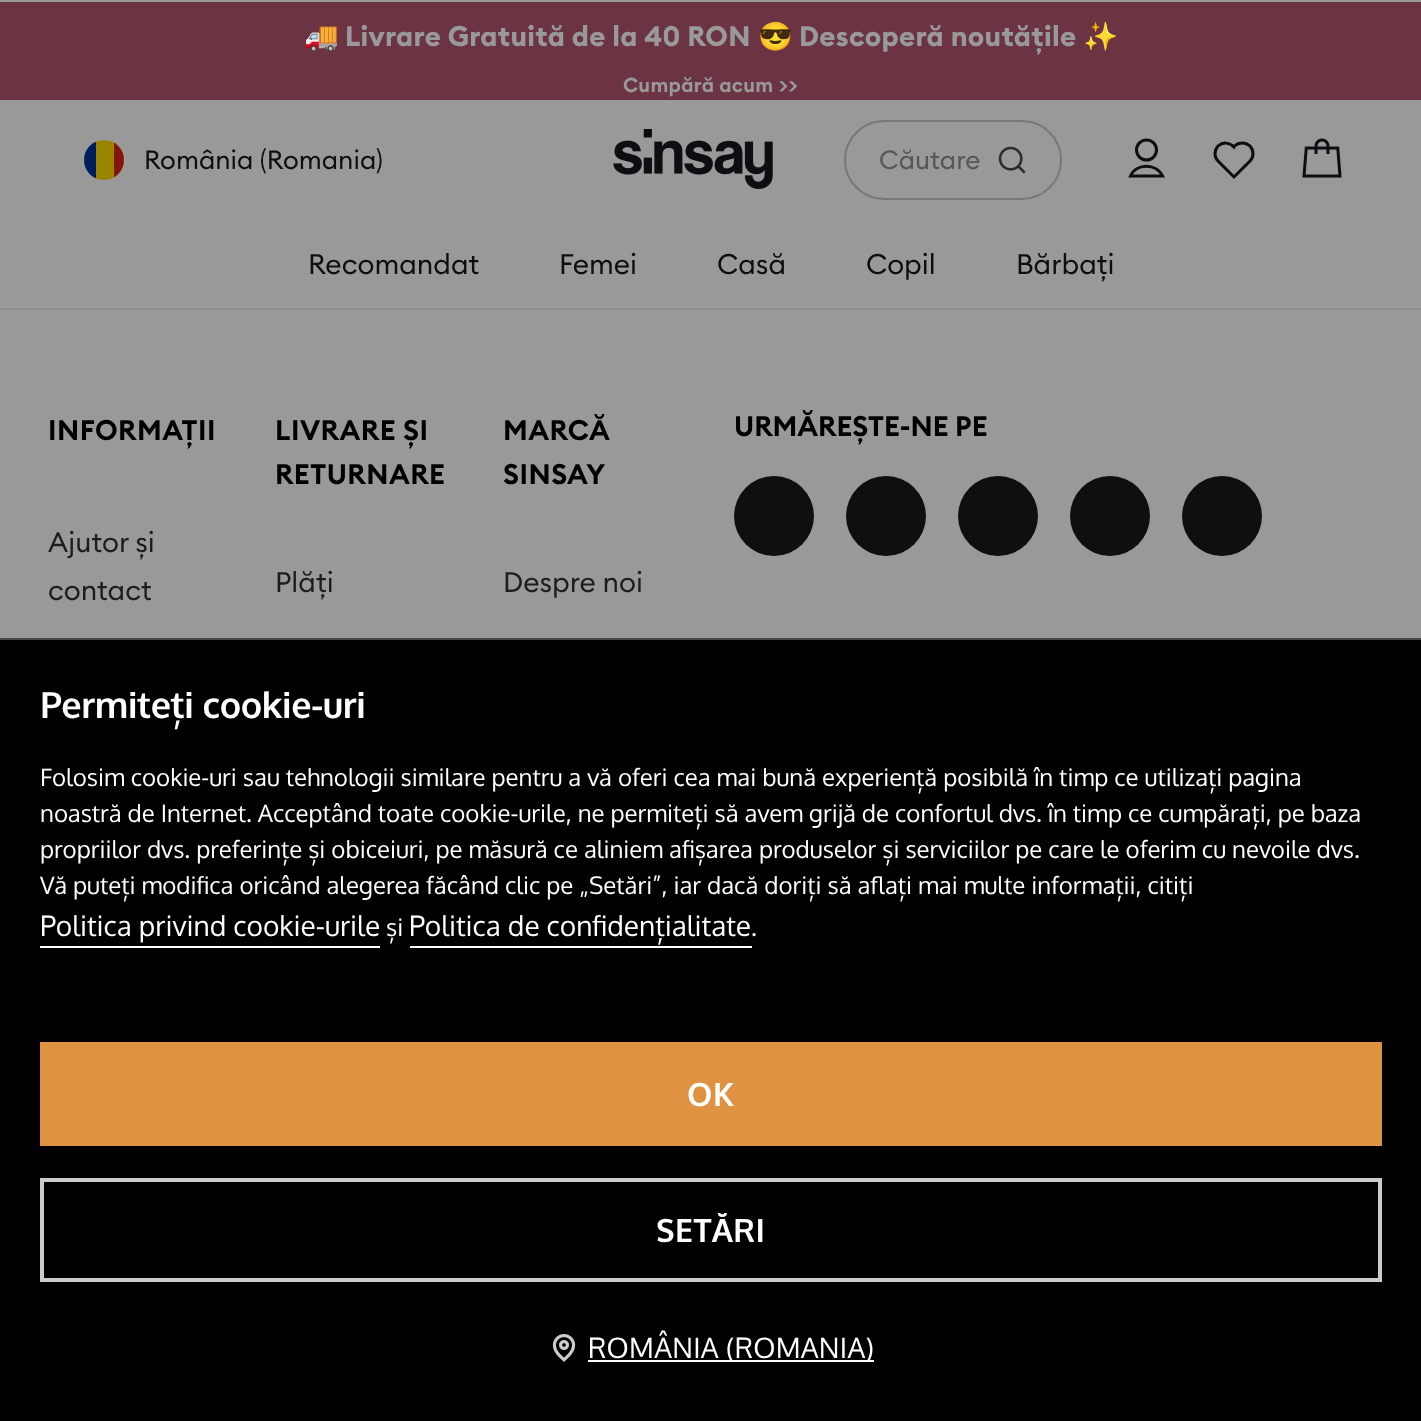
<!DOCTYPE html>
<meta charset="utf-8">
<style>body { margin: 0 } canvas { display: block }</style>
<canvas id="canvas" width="1421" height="1421"></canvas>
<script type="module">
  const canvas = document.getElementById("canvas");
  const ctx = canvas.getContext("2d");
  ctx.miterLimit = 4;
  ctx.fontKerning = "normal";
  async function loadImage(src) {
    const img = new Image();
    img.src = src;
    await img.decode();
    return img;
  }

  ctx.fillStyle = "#999999";
  ctx.fillRect(0, 0, 1421, 1421);
  ctx.fillStyle = "#6c3443";
  ctx.fillRect(0, 2, 1421, 98);
  ctx.letterSpacing = "0.3px";
  ctx.font = "bold 28px Noto Color Emoji";
  ctx.fillStyle = "#999999";
  ctx.fillText("🚚", 304, 46);
  ctx.font = "bold 28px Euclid";
  ctx.fillText("Livrare Gratuită de la 40 RON", 345, 46);
  ctx.font = "bold 28px Noto Color Emoji";
  ctx.fillText("😎", 758, 46);
  ctx.font = "bold 28px Euclid";
  ctx.fillText("Descoperă noutățile", 799, 46);
  ctx.font = "bold 28px Noto Color Emoji";
  ctx.fillText("✨", 1083, 46);
  ctx.font = "600 20px Euclid";
  ctx.fillText("Cumpără acum >>", 623, 92);
  ctx.save();
  ctx.beginPath();
  ctx.roundRect(84, 140, 40, 40, 20);
  ctx.clip();
  ctx.fillStyle = "#001d5e";
  ctx.fillRect(84, 141, 12, 38);
  ctx.fillStyle = "#998500";
  ctx.fillRect(96, 140, 18, 40);
  ctx.fillStyle = "#85140a";
  ctx.fillRect(114, 142, 10, 36);
  ctx.restore();
  ctx.letterSpacing = "0px";
  ctx.font = "26px Euclid";
  ctx.fillStyle = "#0d0e11";
  ctx.fillText("România (Romania)", 144, 169);
  ctx.drawImage(await loadImage("img1.png"), 613, 129, 160, 60);
  ctx.beginPath();
  ctx.roundRect(845, 121, 216, 78, 39);
  ctx.strokeStyle = "#777879";
  ctx.lineWidth = 2;
  ctx.stroke();
  ctx.fillStyle = "#565658";
  ctx.fillText("Căutare", 879, 169);
  ctx.drawImage(await loadImage("img2.png"), 998, 146, 28, 28);
  ctx.beginPath();
  ctx.arc(1146.5, 150, 10, 0, Math.PI * 2);
  ctx.strokeStyle = "#0d0e11";
  ctx.lineWidth = 3;
  ctx.stroke();
  ctx.beginPath();
  ctx.moveTo(1162.5, 176);
  ctx.lineTo(1130.5, 176);
  ctx.bezierCurveTo(1136, 163, 1156.5, 163, 1162.5, 176);
  ctx.closePath();
  ctx.lineCap = "round";
  ctx.stroke();
  ctx.beginPath();
  ctx.moveTo(1218, 146);
  ctx.bezierCurveTo(1223, 141.5, 1229.5, 142.5, 1234, 147);
  ctx.lineTo(1234.5, 146);
  ctx.bezierCurveTo(1239, 142, 1245.5, 142, 1250, 146);
  ctx.bezierCurveTo(1254, 150.5, 1254, 157, 1250, 161);
  ctx.lineTo(1234, 177);
  ctx.lineTo(1218, 161);
  ctx.bezierCurveTo(1214, 157, 1214, 150.5, 1218, 146);
  ctx.closePath();
  ctx.lineCap = "butt";
  ctx.stroke();
  ctx.drawImage(await loadImage("img3.png"), 1302, 138, 40, 40);
  ctx.fillStyle = "#8e8e8e";
  ctx.fillRect(0, 308, 1421, 2);
  ctx.font = "28px Euclid";
  ctx.fillStyle = "#0d0e11";
  ctx.fillText("Recomandat", 308, 274);
  ctx.fillText("Femei", 559, 274);
  ctx.fillText("Casă", 717, 274);
  ctx.fillText("Copil", 866, 274);
  ctx.fillText("Bărbaţi", 1016, 274);
  ctx.letterSpacing = "0.5px";
  ctx.font = "600 28px Euclid";
  ctx.fillStyle = "#000000";
  ctx.fillText("INFORMAȚII", 48, 440);
  ctx.letterSpacing = "0px";
  ctx.font = "28px Euclid";
  ctx.fillStyle = "#1d1d1f";
  ctx.fillText("Ajutor și", 48, 552);
  ctx.fillText("contact", 48, 600);
  ctx.letterSpacing = "0.5px";
  ctx.font = "600 28px Euclid";
  ctx.fillStyle = "#000000";
  ctx.fillText("LIVRARE ȘI", 275, 440);
  ctx.fillText("RETURNARE", 275, 484);
  ctx.letterSpacing = "0px";
  ctx.font = "28px Euclid";
  ctx.fillStyle = "#1d1d1f";
  ctx.fillText("Plăți", 275, 592);
  ctx.letterSpacing = "0.5px";
  ctx.font = "600 28px Euclid";
  ctx.fillStyle = "#000000";
  ctx.fillText("MARCĂ", 503, 440);
  ctx.fillText("SINSAY", 503, 484);
  ctx.letterSpacing = "0px";
  ctx.font = "28px Euclid";
  ctx.fillStyle = "#1d1d1f";
  ctx.fillText("Despre noi", 503, 592);
  ctx.font = "600 28px Euclid";
  ctx.fillStyle = "#000000";
  ctx.fillText("URMĂREȘTE-NE PE", 734, 436);
  ctx.fillStyle = "#0e0f10";
  ctx.beginPath();
  ctx.arc(774, 516, 40, 0, Math.PI * 2);
  ctx.fill();
  ctx.beginPath();
  ctx.arc(886, 516, 40, 0, Math.PI * 2);
  ctx.fill();
  ctx.beginPath();
  ctx.arc(998, 516, 40, 0, Math.PI * 2);
  ctx.fill();
  ctx.beginPath();
  ctx.arc(1110, 516, 40, 0, Math.PI * 2);
  ctx.fill();
  ctx.beginPath();
  ctx.arc(1222, 516, 40, 0, Math.PI * 2);
  ctx.fill();
  ctx.fillStyle = "#000000";
  ctx.fillRect(0, 640, 1421, 781);
  ctx.fillStyle = "#474747";
  ctx.fillRect(0, 638, 1421, 2);
  ctx.letterSpacing = "-0.4px";
  ctx.font = "bold 36px Oxygen";
  ctx.fillStyle = "#ffffff";
  ctx.fillText("Permiteți cookie-uri", 40, 718);
  ctx.letterSpacing = "0px";
  ctx.font = "24px Oxygen";
  ctx.fillText("Folosim cookie-uri sau tehnologii similare pentru a vă oferi cea mai bună experiență posibilă în timp ce utilizați pagina", 40, 786);
  ctx.fillText("noastră de Internet. Acceptând toate cookie-urile, ne permiteți să avem grijă de confortul dvs. în timp ce cumpărați, pe baza", 40, 822);
  ctx.fillText("propriilor dvs. preferințe și obiceiuri, pe măsură ce aliniem afișarea produselor și serviciilor pe care le oferim cu nevoile dvs.", 40, 858);
  ctx.fillText("Vă puteți modifica oricând alegerea făcând clic pe „Setări”, iar dacă doriți să aflați mai multe informații, citiți", 40, 894);
  ctx.font = "28px Oxygen";
  ctx.fillText("Politica privind cookie-urile", 40, 936);
  ctx.fillRect(40, 946, 340, 2);
  ctx.font = "24px Oxygen";
  ctx.fillText("și", 386, 936);
  ctx.font = "28px Oxygen";
  ctx.fillText("Politica de confidențialitate", 409, 936);
  ctx.fillRect(410, 946, 342, 2);
  ctx.font = "24px Oxygen";
  ctx.fillText(".", 751, 936);
  ctx.fillStyle = "#e09243";
  ctx.fillRect(40, 1042, 1342, 104);
  ctx.letterSpacing = "0.5px";
  ctx.font = "bold 32px Oxygen";
  ctx.fillStyle = "#ffffff";
  ctx.fillText("OK", 687, 1106);
  ctx.strokeStyle = "#cccccc";
  ctx.lineWidth = 4;
  ctx.strokeRect(42, 1180, 1338, 100);
  ctx.fillText("SETĂRI", 656, 1242);
  ctx.drawImage(await loadImage("img4.png"), 552, 1334, 24, 28);
  ctx.fillRect(588, 1360, 286, 2);
  ctx.letterSpacing = "0.25px";
  ctx.font = "28px Oxygen";
  ctx.fillText("ROMÂNIA (ROMANIA)", 588, 1358);
</script>
